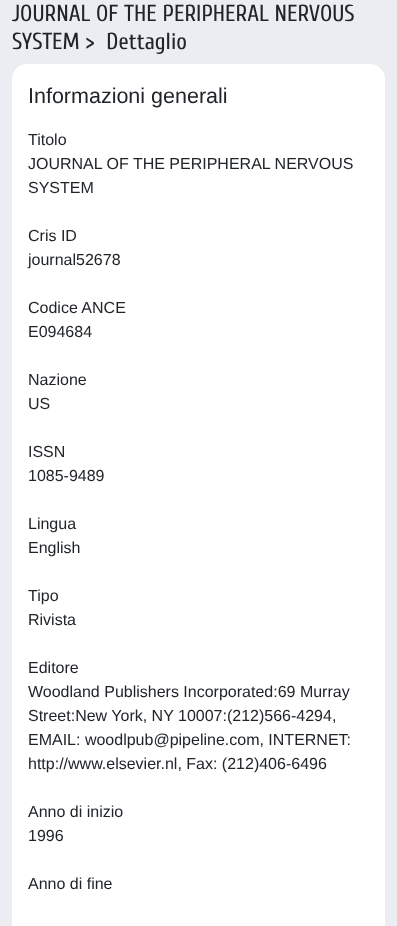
<!DOCTYPE html>
<meta charset="utf-8">
<style>body { margin: 0 } canvas { display: block }</style>
<canvas id="canvas" width="397" height="926"></canvas>
<script type="module">
  const canvas = document.getElementById("canvas");
  const ctx = canvas.getContext("2d");
  ctx.miterLimit = 4;
  ctx.fontKerning = "normal";

  ctx.fillStyle = "#ecedf2";
  ctx.fillRect(0, 0, 397, 926);
  ctx.font = "23.2px Cuprum";
  ctx.fillStyle = "#212529";
  ctx.fillText("JOURNAL OF THE PERIPHERAL NERVOUS", 12, 21);
  ctx.fillText("SYSTEM >  Dettaglio", 12, 49);
  ctx.fillStyle = "#ffffff";
  ctx.beginPath();
  ctx.roundRect(12, 64, 373, 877, 15);
  ctx.fill();
  ctx.font = "21.5px Liberation Sans";
  ctx.fillStyle = "#212529";
  ctx.fillText("Informazioni generali", 28, 103);
  ctx.font = "16px Liberation Sans";
  ctx.fillText("Titolo", 28, 145);
  ctx.fillText("JOURNAL OF THE PERIPHERAL NERVOUS", 28, 169);
  ctx.fillText("SYSTEM", 28, 193);
  ctx.fillText("Cris ID", 28, 241);
  ctx.fillText("journal52678", 28, 265);
  ctx.fillText("Codice ANCE", 28, 313);
  ctx.fillText("E094684", 28, 337);
  ctx.fillText("Nazione", 28, 385);
  ctx.fillText("US", 28, 409);
  ctx.fillText("ISSN", 28, 457);
  ctx.fillText("1085-9489", 28, 481);
  ctx.fillText("Lingua", 28, 529);
  ctx.fillText("English", 28, 553);
  ctx.fillText("Tipo", 28, 601);
  ctx.fillText("Rivista", 28, 625);
  ctx.fillText("Editore", 28, 673);
  ctx.fillText("Woodland Publishers Incorporated:69 Murray", 28, 697);
  ctx.fillText("Street:New York, NY 10007:(212)566-4294,", 28, 721);
  ctx.fillText("EMAIL: woodlpub@pipeline.com, INTERNET:", 28, 745);
  ctx.fillText("http://www.elsevier.nl, Fax: (212)406-6496", 28, 769);
  ctx.fillText("Anno di inizio", 28, 817);
  ctx.fillText("1996", 28, 841);
  ctx.fillText("Anno di fine", 28, 889);
</script>
